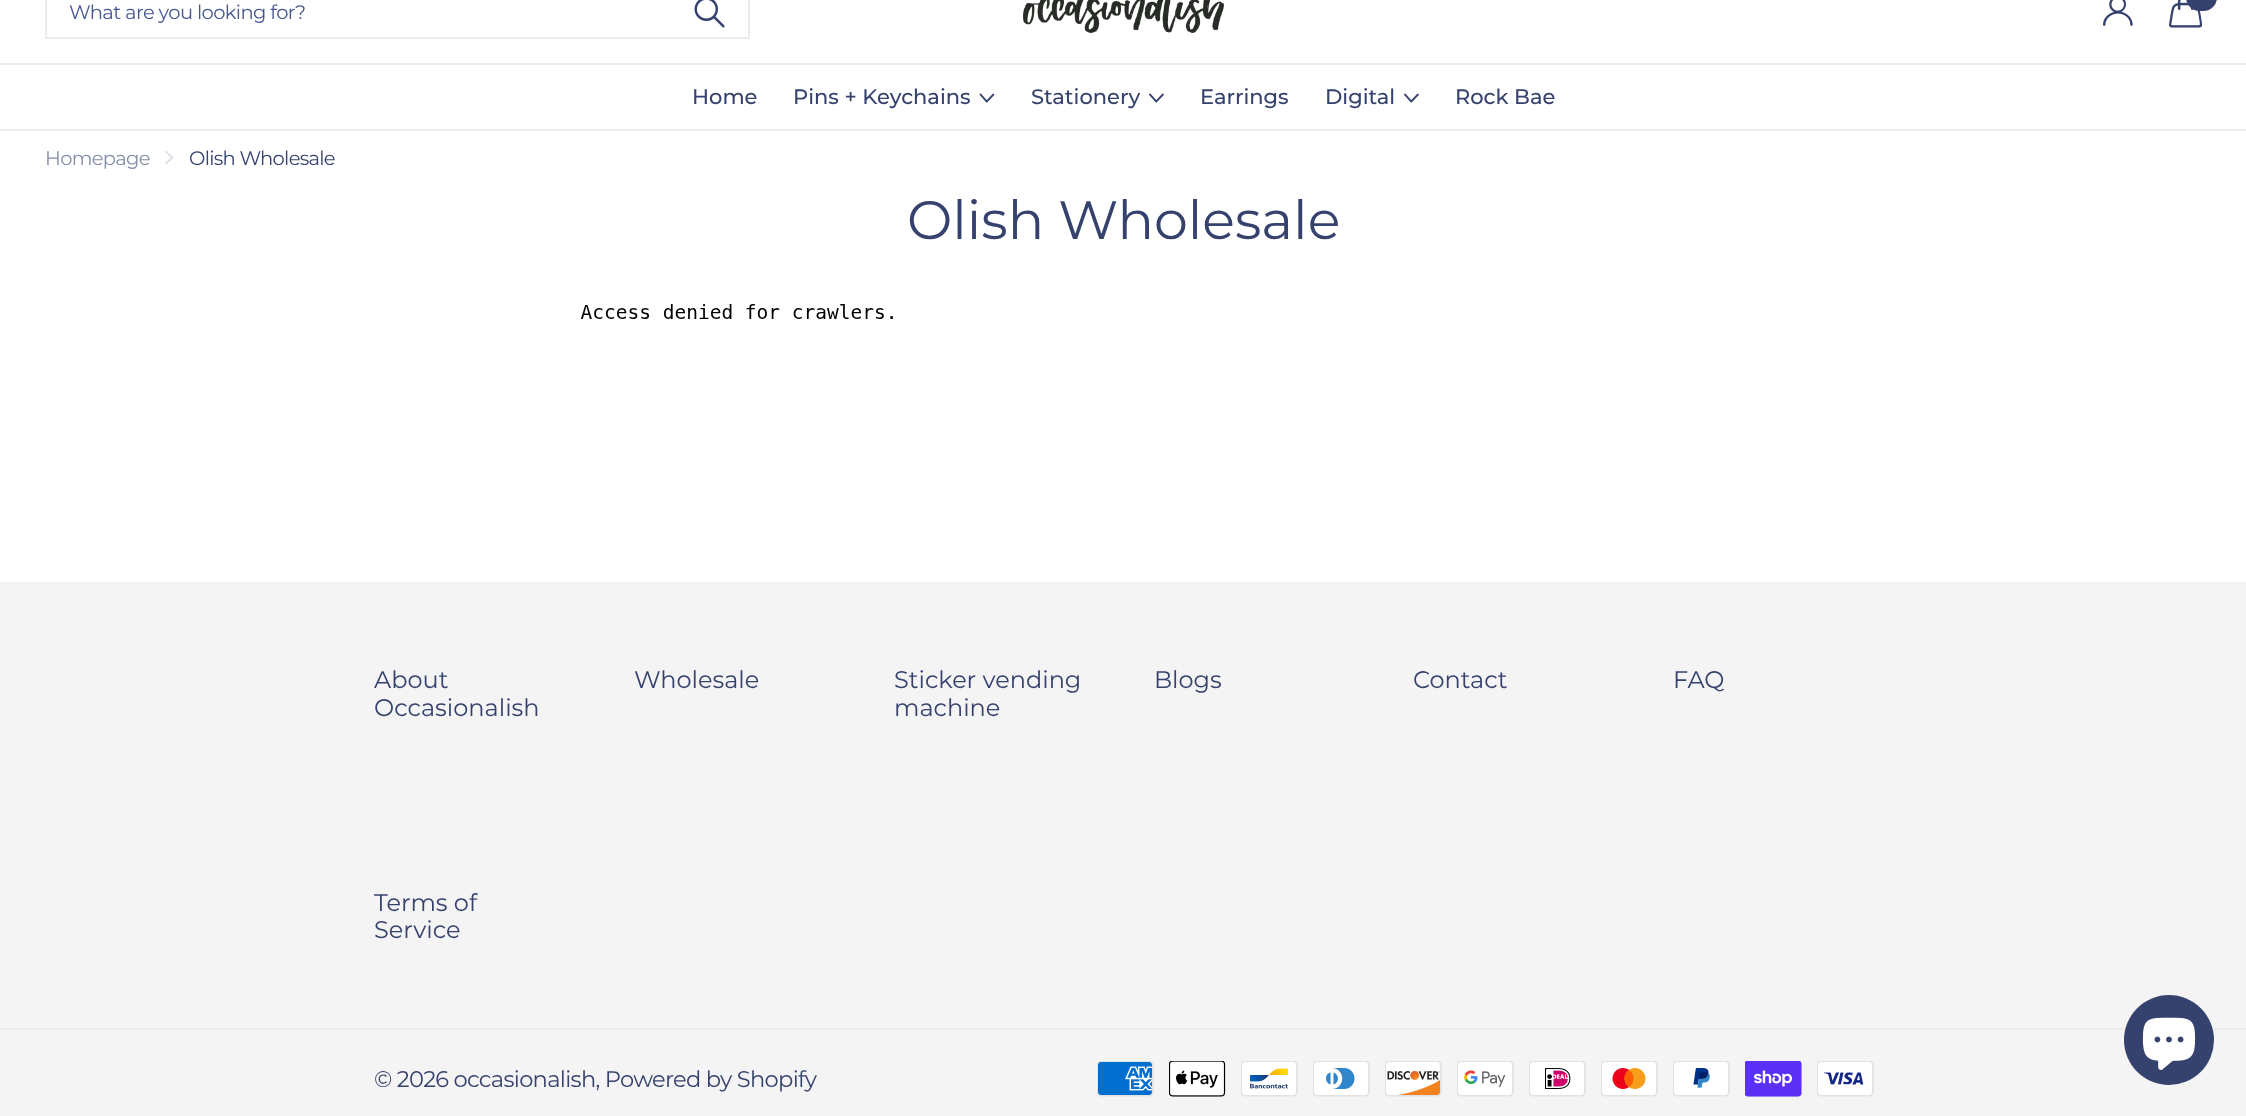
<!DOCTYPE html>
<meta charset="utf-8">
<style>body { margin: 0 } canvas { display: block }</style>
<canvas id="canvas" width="2246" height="1116"></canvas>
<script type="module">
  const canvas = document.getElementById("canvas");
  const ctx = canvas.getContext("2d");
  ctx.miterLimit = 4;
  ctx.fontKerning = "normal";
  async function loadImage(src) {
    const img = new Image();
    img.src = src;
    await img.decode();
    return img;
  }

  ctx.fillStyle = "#ffffff";
  ctx.fillRect(0, 0, 2246, 1116);
  ctx.strokeStyle = "#ececec";
  ctx.lineWidth = 2;
  ctx.strokeRect(46, -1, 703, 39);
  ctx.letterSpacing = "-0.6px";
  ctx.font = "19.5px Montserrat";
  ctx.fillStyle = "#475790";
  ctx.fillText("What are you looking for?", 69, 19);
  ctx.drawImage(await loadImage("img1.png"), 694, 0, 31, 28);
  ctx.drawImage(await loadImage("img2.png"), 1023, 0, 201, 33);
  ctx.drawImage(await loadImage("img3.png"), 2103, 0, 30, 26);
  ctx.drawImage(await loadImage("img4.png"), 2169, 0, 34, 28);
  ctx.fillStyle = "#36426e";
  ctx.beginPath();
  ctx.roundRect(2186, -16, 31, 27, 15.5);
  ctx.fill();
  ctx.fillStyle = "#ececec";
  ctx.fillRect(0, 63, 2246, 2);
  ctx.letterSpacing = "0px";
  ctx.font = "500 21px Montserrat";
  ctx.fillStyle = "#36426e";
  ctx.fillText("Home", 692, 104);
  ctx.fillText("Pins + Keychains", 793, 104);
  ctx.drawImage(await loadImage("img5.png"), 979, 93, 16, 10);
  ctx.fillText("Stationery", 1031, 104);
  ctx.drawImage(await loadImage("img6.png"), 1149, 93, 15, 10);
  ctx.fillText("Earrings", 1200, 104);
  ctx.fillText("Digital", 1325, 104);
  ctx.drawImage(await loadImage("img6.png"), 1404, 93, 15, 10);
  ctx.fillText("Rock Bae", 1455, 104);
  ctx.fillStyle = "#ececec";
  ctx.fillRect(0, 129, 2246, 2);
  ctx.letterSpacing = "-0.7px";
  ctx.font = "19.5px Montserrat";
  ctx.fillStyle = "#868ea8";
  ctx.fillText("Homepage", 45, 165);
  ctx.drawImage(await loadImage("img7.png"), 165, 151, 9, 14);
  ctx.fillStyle = "#36426e";
  ctx.fillText("Olish Wholesale", 189, 165);
  ctx.letterSpacing = "0px";
  ctx.font = "54px Montserrat";
  ctx.fillText("Olish Wholesale", 907, 239);
  ctx.drawImage(await loadImage("img8.png"), 580, 304, 313, 15);
  ctx.fillStyle = "#f4f4f4";
  ctx.fillRect(0, 582, 2246, 534);
  ctx.font = "24px Montserrat";
  ctx.fillStyle = "#36426e";
  ctx.fillText("About", 374, 688);
  ctx.fillText("Occasionalish", 374, 716);
  ctx.fillText("Wholesale", 634, 688);
  ctx.fillText("Sticker vending", 894, 688);
  ctx.fillText("machine", 894, 716);
  ctx.fillText("Blogs", 1154, 688);
  ctx.fillText("Contact", 1413, 688);
  ctx.fillText("FAQ", 1673, 688);
  ctx.fillText("Terms of", 374, 911);
  ctx.fillText("Service", 374, 938);
  ctx.fillStyle = "#ececec";
  ctx.fillRect(0, 1028, 2246, 2);
  ctx.letterSpacing = "-0.7px";
  ctx.font = "22.6px Montserrat";
  ctx.fillStyle = "#36426e";
  ctx.fillText("© 2026 occasionalish, Powered by Shopify", 374, 1087);
  ctx.drawImage(await loadImage("img9.png"), 1097, 1061, 57, 36);
  ctx.drawImage(await loadImage("img10.png"), 1169, 1061, 57, 36);
  ctx.drawImage(await loadImage("img11.png"), 1241, 1061, 57, 36);
  ctx.drawImage(await loadImage("img12.png"), 1313, 1061, 57, 36);
  ctx.drawImage(await loadImage("img13.png"), 1385, 1061, 57, 36);
  ctx.drawImage(await loadImage("img14.png"), 1457, 1061, 57, 36);
  ctx.drawImage(await loadImage("img15.png"), 1529, 1061, 57, 36);
  ctx.drawImage(await loadImage("img16.png"), 1601, 1061, 57, 36);
  ctx.drawImage(await loadImage("img17.png"), 1673, 1061, 57, 36);
  ctx.drawImage(await loadImage("img18.png"), 1745, 1061, 57, 36);
  ctx.drawImage(await loadImage("img19.png"), 1817, 1061, 57, 36);
  ctx.beginPath();
  ctx.arc(2169, 1040, 45, 0, Math.PI * 2);
  ctx.fill();
  ctx.drawImage(await loadImage("img20.png"), 2142, 1017, 54, 53);
</script>
